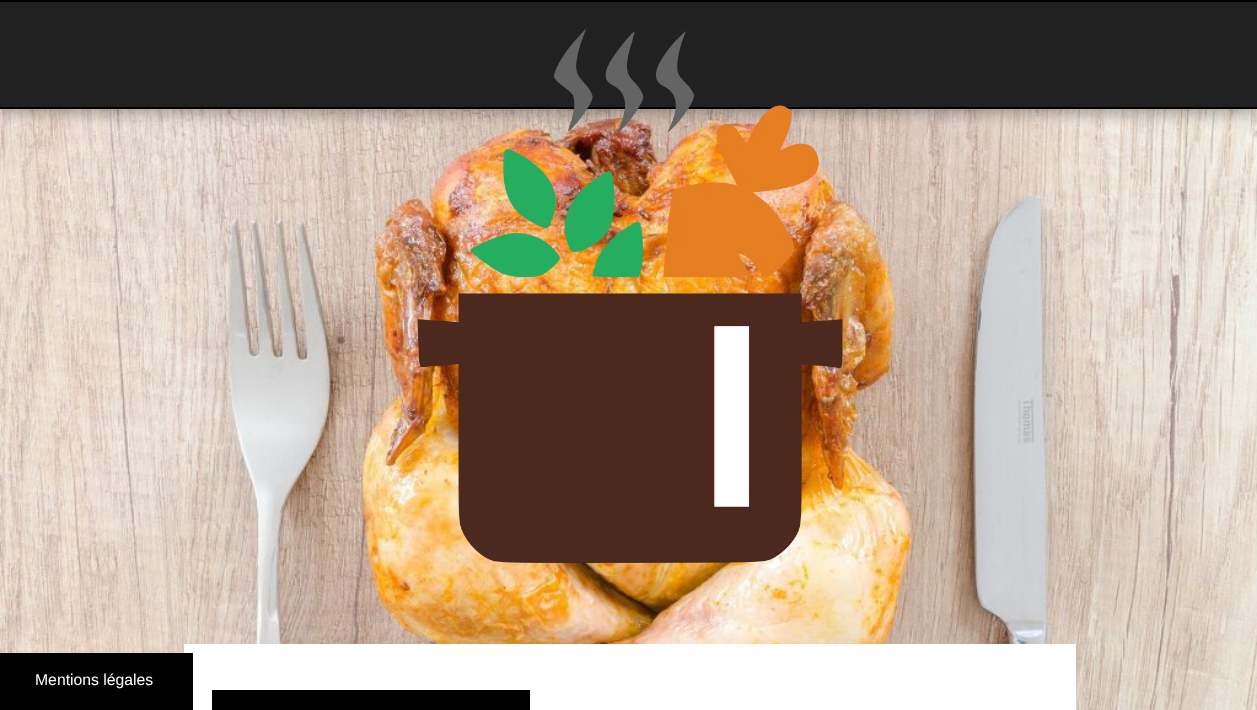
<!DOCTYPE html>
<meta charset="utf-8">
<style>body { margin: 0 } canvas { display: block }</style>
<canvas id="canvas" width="1257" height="710"></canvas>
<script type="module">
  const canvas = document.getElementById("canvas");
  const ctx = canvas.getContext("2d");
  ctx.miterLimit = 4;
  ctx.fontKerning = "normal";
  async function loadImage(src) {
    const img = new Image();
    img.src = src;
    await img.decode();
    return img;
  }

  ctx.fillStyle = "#ffffff";
  ctx.fillRect(0, 0, 1257, 710);
  ctx.drawImage(await loadImage("img2.png"), 0, 109, 1257, 601);
  ctx.fillStyle = "rgba(33, 33, 33, 0.35)";
  ctx.filter = "blur(7px)";
  ctx.beginPath();
  ctx.rect(0, 5, 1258, 109);
  ctx.fill();
  ctx.filter = "none";
  ctx.fillStyle = "#212121";
  ctx.fillRect(0, 2, 1257, 105);
  ctx.fillStyle = "#000000";
  ctx.fillRect(0, 0, 1257, 2);
  ctx.fillRect(0, 107, 1257, 2);
  ctx.drawImage(await loadImage("img1.png"), 417, 29, 426, 534);
  ctx.fillStyle = "#ffffff";
  ctx.fillRect(184, 644, 892, 66);
  ctx.fillStyle = "#000000";
  ctx.fillRect(212, 690, 318, 20);
  ctx.fillRect(0, 653, 193, 57);
  ctx.font = "15.75px Liberation Sans";
  ctx.fillStyle = "#ffffff";
  ctx.fillText("Mentions légales", 35, 685);
</script>
